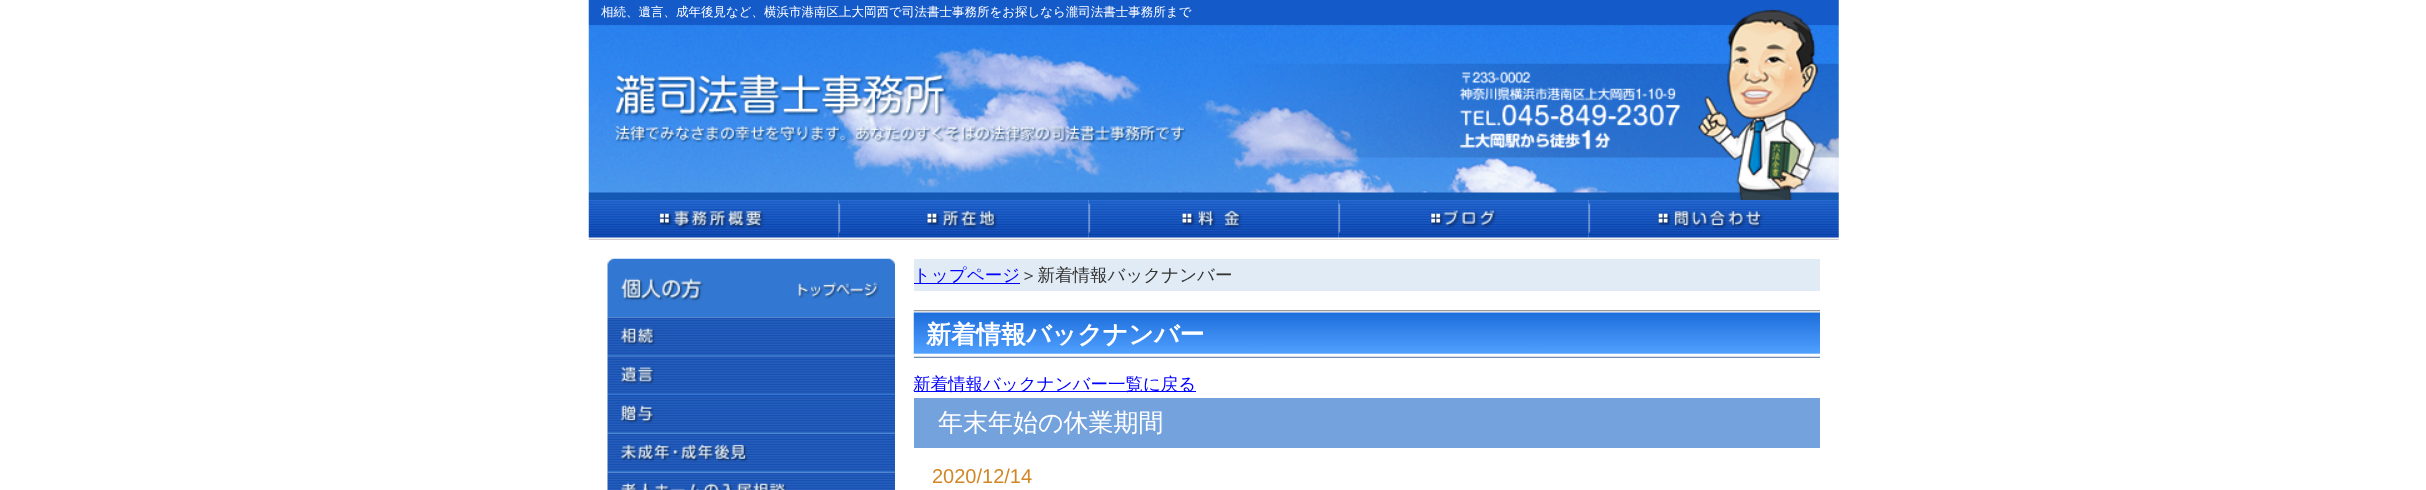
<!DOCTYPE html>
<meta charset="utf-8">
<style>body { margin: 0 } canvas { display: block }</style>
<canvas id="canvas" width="2426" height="490"></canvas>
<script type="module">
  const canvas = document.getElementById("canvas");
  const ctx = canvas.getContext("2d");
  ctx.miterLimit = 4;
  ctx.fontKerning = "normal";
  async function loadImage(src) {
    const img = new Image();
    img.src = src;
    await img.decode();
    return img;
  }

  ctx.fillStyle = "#ffffff";
  ctx.fillRect(0, 0, 2426, 490);
  ctx.drawImage(await loadImage("img1.png"), 588, 0, 1251, 200);
  ctx.font = "500 12.5px WenQuanYi Zen Hei";
  ctx.fillText("相続、遺言、成年後見など、横浜市港南区上大岡西で司法書士事務所をお探しなら瀧司法書士事務所まで", 601, 16);
  ctx.drawImage(await loadImage("img2.png"), 588, 200, 251, 40);
  ctx.drawImage(await loadImage("img3.png"), 838, 200, 251, 40);
  ctx.drawImage(await loadImage("img4.png"), 1088, 200, 251, 40);
  ctx.drawImage(await loadImage("img5.png"), 1338, 200, 251, 40);
  ctx.drawImage(await loadImage("img6.png"), 1588, 200, 251, 40);
  ctx.drawImage(await loadImage("img7.png"), 607, 258, 288, 60);
  ctx.drawImage(await loadImage("img8.png"), 607, 317, 288, 40);
  ctx.drawImage(await loadImage("img9.png"), 607, 356, 288, 39);
  ctx.drawImage(await loadImage("img10.png"), 607, 395, 288, 39);
  ctx.drawImage(await loadImage("img11.png"), 607, 433, 288, 40);
  ctx.drawImage(await loadImage("img12.png"), 607, 472, 288, 18);
  ctx.fillStyle = "#e1ebf5";
  ctx.fillRect(914, 259, 906, 32);
  ctx.fillStyle = "#0000ff";
  ctx.fillRect(914, 283, 106, 1);
  ctx.font = "500 17.5px WenQuanYi Zen Hei";
  ctx.fillText("トップページ", 913, 281);
  ctx.fillStyle = "#333333";
  ctx.fillText("＞新着情報バックナンバー", 1020, 281);
  ctx.fillStyle = "#144fb3";
  ctx.fillRect(914, 357, 906, 1);
  ctx.drawImage(await loadImage("img13.png"), 913, 310, 907, 48);
  ctx.font = "bold 25px WenQuanYi Zen Hei";
  ctx.fillStyle = "#ffffff";
  ctx.fillText("新着情報バックナンバー", 926, 343);
  ctx.fillStyle = "#0000ff";
  ctx.fillRect(914, 391, 282, 1);
  ctx.font = "500 17.5px WenQuanYi Zen Hei";
  ctx.fillText("新着情報バックナンバー一覧に戻る", 913, 390);
  ctx.fillStyle = "#74a2dd";
  ctx.fillRect(914, 398, 906, 50);
  ctx.font = "500 25px WenQuanYi Zen Hei";
  ctx.fillStyle = "#ffffff";
  ctx.fillText("年末年始の休業期間", 938, 431);
  ctx.font = "20px Liberation Sans";
  ctx.fillStyle = "#d18728";
  ctx.fillText("2020/12/14", 932, 483);
</script>
